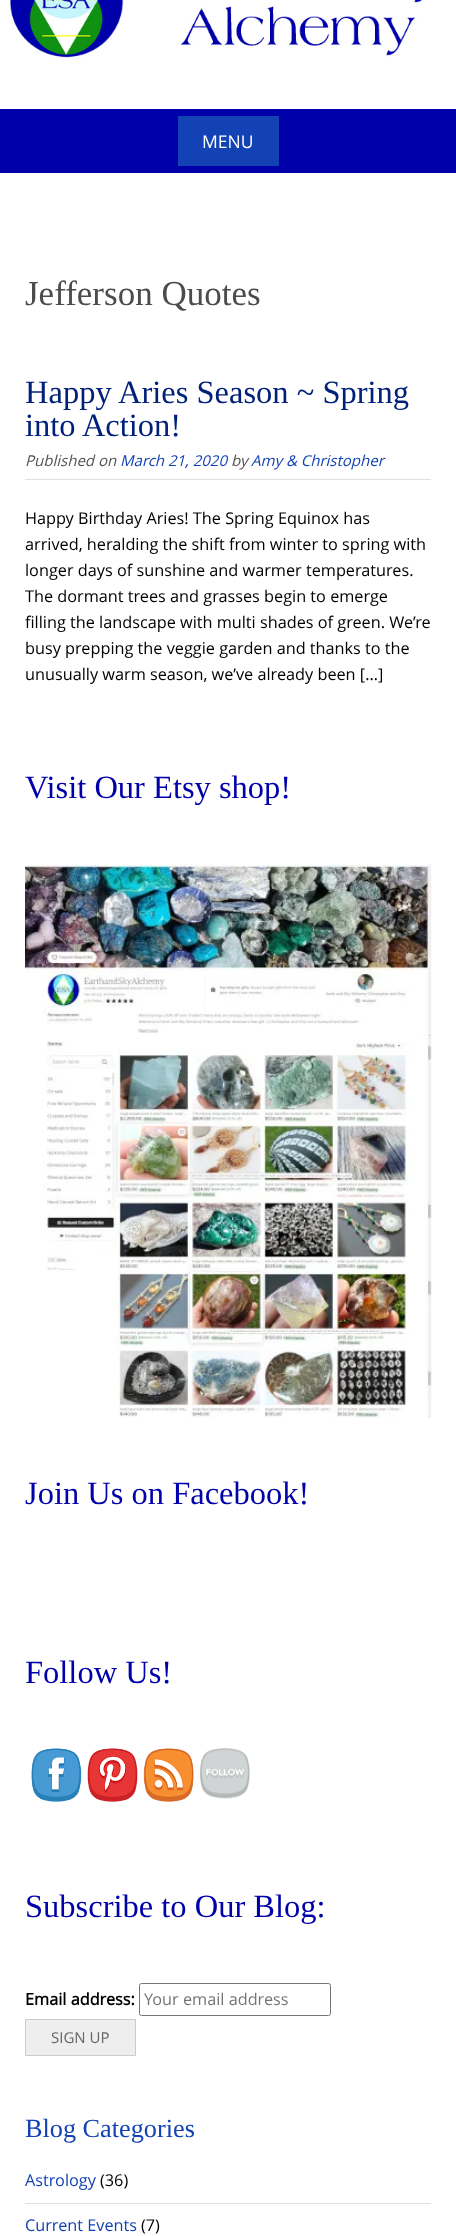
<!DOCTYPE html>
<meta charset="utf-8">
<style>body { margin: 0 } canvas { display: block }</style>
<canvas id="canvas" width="456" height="2236"></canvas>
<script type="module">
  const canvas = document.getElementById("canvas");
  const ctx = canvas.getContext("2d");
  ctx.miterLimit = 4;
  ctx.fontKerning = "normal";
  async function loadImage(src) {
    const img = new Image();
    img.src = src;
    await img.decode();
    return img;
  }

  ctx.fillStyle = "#0000aa";
  ctx.fillRect(0, 0, 456, 2236);
  ctx.fillStyle = "#ffffff";
  ctx.fillRect(0, 0, 456, 109);
  ctx.drawImage(await loadImage("img1.png"), 10, 0, 412, 58);
  ctx.fillStyle = "#1242b3";
  ctx.fillRect(178, 116, 101, 50);
  ctx.font = "17.5px Open Sans";
  ctx.fillStyle = "#ffffff";
  ctx.fillText("MENU", 202, 148);
  ctx.fillRect(0, 173, 456, 2063);
  ctx.font = "35px Liberation Serif";
  ctx.fillStyle = "#4c4c4c";
  ctx.fillText("Jefferson Quotes", 25, 305);
  ctx.fillStyle = "#e0e0e0";
  ctx.fillRect(25, 479, 406, 1);
  ctx.font = "32.5px Liberation Serif";
  ctx.fillStyle = "#00207a";
  ctx.fillText("Happy Aries Season ~ Spring", 25, 403);
  ctx.fillText("into Action!", 25, 436);
  ctx.font = "italic 15px Open Sans";
  ctx.fillStyle = "#545454";
  ctx.fillText("Published on", 25, 466);
  ctx.fillStyle = "#1242b3";
  ctx.fillText("March 21, 2020", 120, 466);
  ctx.fillStyle = "#545454";
  ctx.fillText("by", 231, 466);
  ctx.fillStyle = "#1242b3";
  ctx.fillText("Amy & Christopher", 251, 466);
  ctx.font = "16.25px Open Sans";
  ctx.fillStyle = "#000000";
  ctx.fillText("Happy Birthday Aries! The Spring Equinox has", 25, 524);
  ctx.fillText("arrived, heralding the shift from winter to spring with", 25, 550);
  ctx.fillText("longer days of sunshine and warmer temperatures.", 25, 576);
  ctx.fillText("The dormant trees and grasses begin to emerge", 25, 602);
  ctx.fillText("filling the landscape with multi shades of green. We’re", 25, 628);
  ctx.fillText("busy prepping the veggie garden and thanks to the", 25, 654);
  ctx.fillText("unusually warm season, we’ve already been […]", 25, 680);
  ctx.font = "32.5px Liberation Serif";
  ctx.fillStyle = "#0000aa";
  ctx.fillText("Visit Our Etsy shop!", 25, 798);
  ctx.drawImage(await loadImage("img2.png"), 25, 864, 407, 554);
  ctx.fillText("Join Us on Facebook!", 25, 1504);
  ctx.fillText("Follow Us!", 25, 1683);
  ctx.drawImage(await loadImage("img3.png"), 31, 1748, 51, 54);
  ctx.drawImage(await loadImage("img4.png"), 87, 1748, 51, 54);
  ctx.drawImage(await loadImage("img5.png"), 143, 1748, 51, 54);
  ctx.drawImage(await loadImage("img6.png"), 200, 1748, 50, 51);
  ctx.fillText("Subscribe to Our Blog:", 25, 1917);
  ctx.font = "bold 16.25px Open Sans";
  ctx.fillStyle = "#000000";
  ctx.fillText("Email address:", 25, 2005);
  ctx.beginPath();
  ctx.roundRect(139.5, 1983.5, 191, 32, 2);
  ctx.strokeStyle = "#767676";
  ctx.stroke();
  ctx.font = "16.25px Open Sans";
  ctx.fillStyle = "#757575";
  ctx.fillText("Your email address", 144, 2005);
  ctx.fillStyle = "#eeeeee";
  ctx.beginPath();
  ctx.rect(25.5, 2019.5, 110, 36);
  ctx.fill();
  ctx.strokeStyle = "#cccccc";
  ctx.stroke();
  ctx.font = "15px Open Sans";
  ctx.fillStyle = "#666666";
  ctx.fillText("SIGN UP", 51, 2043);
  ctx.font = "26.25px Liberation Serif";
  ctx.fillStyle = "#1242b3";
  ctx.fillText("Blog Categories", 25, 2137);
  ctx.fillStyle = "#e0e0e0";
  ctx.fillRect(25, 2203, 406, 1);
  ctx.font = "16.25px Open Sans";
  ctx.fillStyle = "#1242b3";
  ctx.fillText("Astrology", 25, 2186);
  ctx.fillStyle = "#000000";
  ctx.fillText("(36)", 100, 2186);
  ctx.fillStyle = "#1242b3";
  ctx.fillText("Current Events", 25, 2231);
  ctx.fillStyle = "#000000";
  ctx.fillText("(7)", 141, 2231);
</script>
